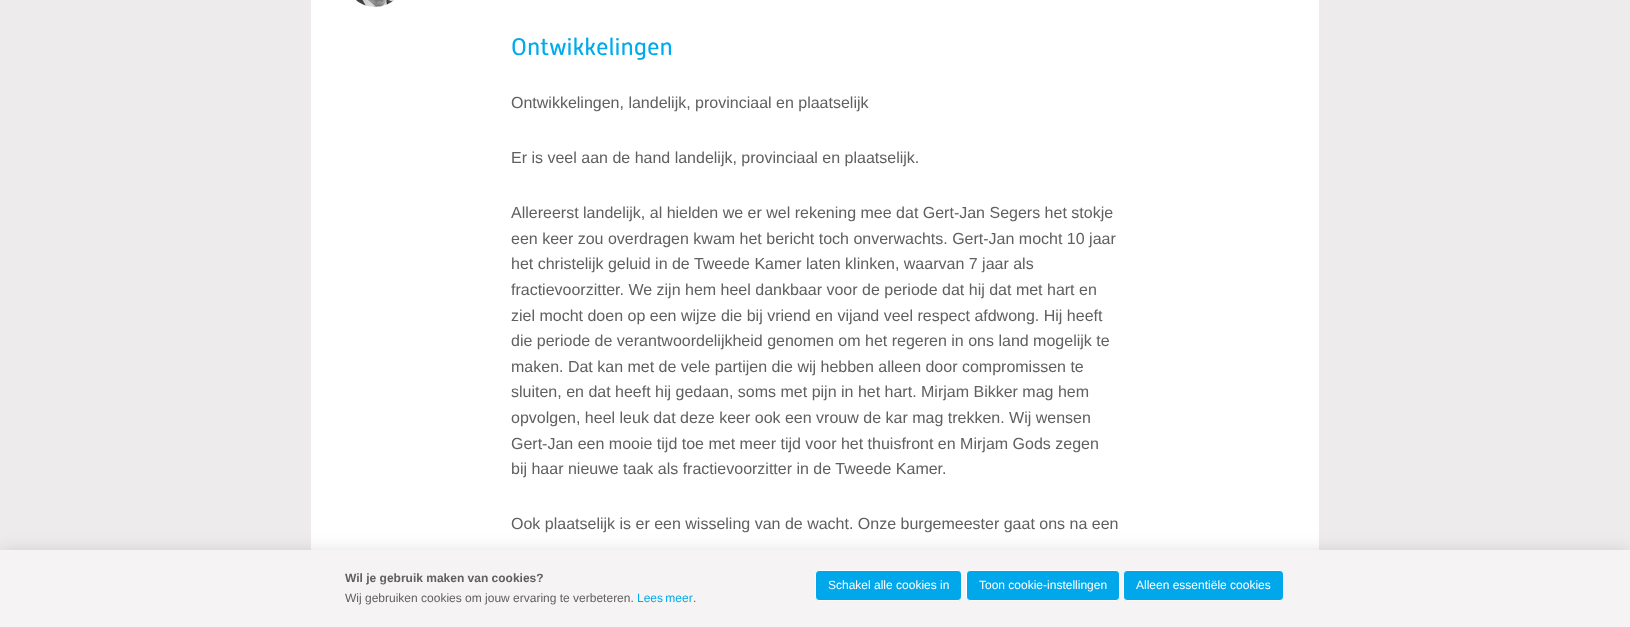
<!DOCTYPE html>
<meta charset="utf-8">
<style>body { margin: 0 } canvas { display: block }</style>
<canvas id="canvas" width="1630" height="627"></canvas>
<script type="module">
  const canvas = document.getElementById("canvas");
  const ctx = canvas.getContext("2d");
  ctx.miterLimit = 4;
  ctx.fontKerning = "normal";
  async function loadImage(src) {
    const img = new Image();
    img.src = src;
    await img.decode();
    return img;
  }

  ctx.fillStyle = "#edebeb";
  ctx.fillRect(0, 0, 1630, 627);
  ctx.fillStyle = "#ffffff";
  ctx.fillRect(311, 0, 1008, 550);
  ctx.drawImage(await loadImage("img1.png"), 356, 0, 38, 7);
  ctx.font = "24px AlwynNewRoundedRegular";
  ctx.fillStyle = "#00abec";
  ctx.fillText("Ontwikkelingen", 511, 55);
  ctx.font = "16px Liberation Sans";
  ctx.fillStyle = "#606060";
  ctx.fillText("Ontwikkelingen, landelijk, provinciaal en plaatselijk", 511, 108);
  ctx.fillText("Er is veel aan de hand landelijk, provinciaal en plaatselijk.", 511, 163);
  ctx.fillText("Allereerst landelijk, al hielden we er wel rekening mee dat Gert-Jan Segers het stokje", 511, 218);
  ctx.fillText("een keer zou overdragen kwam het bericht toch onverwachts. Gert-Jan mocht 10 jaar", 511, 244);
  ctx.fillText("het christelijk geluid in de Tweede Kamer laten klinken, waarvan 7 jaar als", 511, 269);
  ctx.fillText("fractievoorzitter. We zijn hem heel dankbaar voor de periode dat hij dat met hart en", 511, 295);
  ctx.fillText("ziel mocht doen op een wijze die bij vriend en vijand veel respect afdwong. Hij heeft", 511, 321);
  ctx.fillText("die periode de verantwoordelijkheid genomen om het regeren in ons land mogelijk te", 511, 346);
  ctx.fillText("maken. Dat kan met de vele partijen die wij hebben alleen door compromissen te", 511, 372);
  ctx.fillText("sluiten, en dat heeft hij gedaan, soms met pijn in het hart. Mirjam Bikker mag hem", 511, 397);
  ctx.fillText("opvolgen, heel leuk dat deze keer ook een vrouw de kar mag trekken. Wij wensen", 511, 423);
  ctx.fillText("Gert-Jan een mooie tijd toe met meer tijd voor het thuisfront en Mirjam Gods zegen", 511, 449);
  ctx.fillText("bij haar nieuwe taak als fractievoorzitter in de Tweede Kamer.", 511, 474);
  ctx.fillText("Ook plaatselijk is er een wisseling van de wacht. Onze burgemeester gaat ons na een", 511, 529);
  ctx.fillStyle = "rgba(0, 0, 0, 0.2)";
  ctx.filter = "blur(10px)";
  ctx.beginPath();
  ctx.rect(0, 555, 1630, 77);
  ctx.fill();
  ctx.filter = "none";
  ctx.fillStyle = "#f5f3f3";
  ctx.fillRect(0, 550, 1630, 77);
  ctx.font = "bold 12px Liberation Sans";
  ctx.fillStyle = "#606060";
  ctx.fillText("Wil je gebruik maken van cookies?", 345, 582);
  ctx.font = "12px Liberation Sans";
  ctx.fillText("Wij gebruiken cookies om jouw ervaring te verbeteren.", 345, 602);
  ctx.wordSpacing = "-1px";
  ctx.fillStyle = "#00abec";
  ctx.fillText("Lees meer", 637, 602);
  ctx.wordSpacing = "0px";
  ctx.fillStyle = "#606060";
  ctx.fillText(".", 693, 602);
  ctx.fillStyle = "#00a7eb";
  ctx.beginPath();
  ctx.roundRect(815.5, 570.5, 146, 30, 3.5);
  ctx.fill();
  ctx.strokeStyle = "#ffffff";
  ctx.stroke();
  ctx.fillStyle = "#ffffff";
  ctx.fillText("Schakel alle cookies in", 828, 589);
  ctx.fillStyle = "#00a7eb";
  ctx.beginPath();
  ctx.roundRect(966.5, 570.5, 153, 30, 3.5);
  ctx.fill();
  ctx.stroke();
  ctx.fillStyle = "#ffffff";
  ctx.fillText("Toon cookie-instellingen", 979, 589);
  ctx.fillStyle = "#00a7eb";
  ctx.beginPath();
  ctx.roundRect(1123.5, 570.5, 160, 30, 3.5);
  ctx.fill();
  ctx.stroke();
  ctx.fillStyle = "#ffffff";
  ctx.fillText("Alleen essentiële cookies", 1136, 589);
</script>
